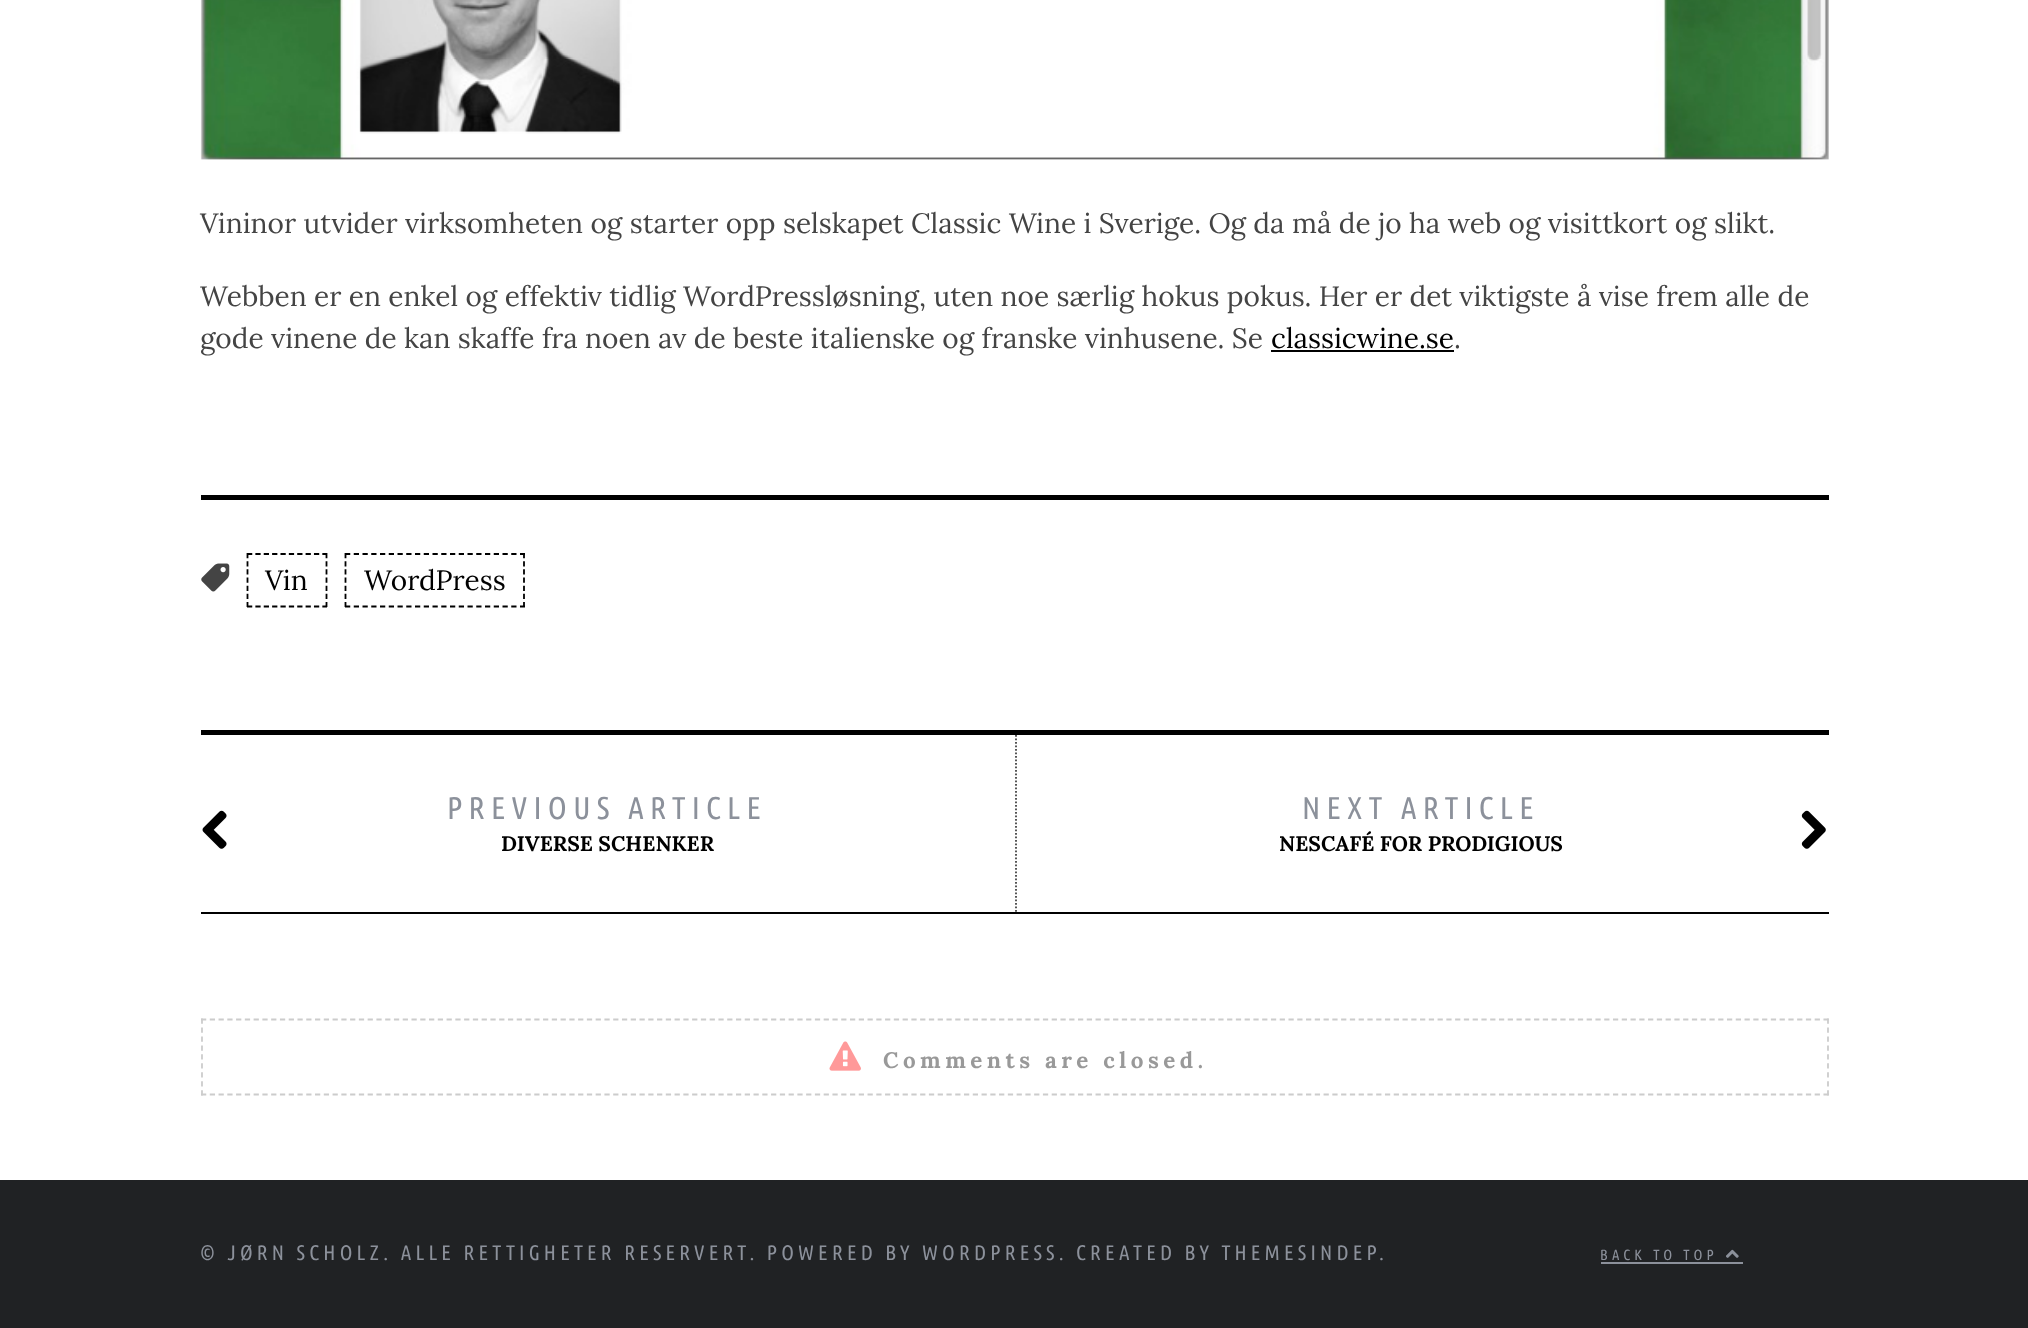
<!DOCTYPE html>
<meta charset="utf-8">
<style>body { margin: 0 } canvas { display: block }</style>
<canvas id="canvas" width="2028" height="1328"></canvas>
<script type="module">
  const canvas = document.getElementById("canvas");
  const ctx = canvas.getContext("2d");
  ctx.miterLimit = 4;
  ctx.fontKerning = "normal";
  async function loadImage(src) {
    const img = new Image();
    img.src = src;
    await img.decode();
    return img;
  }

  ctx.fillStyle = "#ffffff";
  ctx.fillRect(0, 0, 2028, 1328);
  ctx.drawImage(await loadImage("img1.png"), 200, 0, 1629, 160);
  ctx.font = "28px Lora";
  ctx.fillStyle = "#444444";
  ctx.fillText("Vininor utvider virksomheten og starter opp selskapet Classic Wine i Sverige. Og da må de jo ha web og visittkort og slikt.", 200, 233);
  ctx.fillText("Webben er en enkel og effektiv tidlig WordPressløsning, uten noe særlig hokus pokus. Her er det viktigste å vise frem alle de", 200, 306);
  ctx.fillText("gode vinene de kan skaffe fra noen av de beste italienske og franske vinhusene. Se", 200, 348);
  ctx.fillStyle = "#000000";
  ctx.fillText("classicwine.se", 1271, 348);
  ctx.fillRect(1271, 350, 183, 2);
  ctx.fillStyle = "#444444";
  ctx.fillText(".", 1454, 348);
  ctx.fillStyle = "#000000";
  ctx.fillRect(201, 495, 1628, 5);
  ctx.drawImage(await loadImage("img2.png"), 201, 563, 29, 29);
  ctx.beginPath();
  ctx.moveTo(247, 554);
  ctx.lineTo(327, 554);
  ctx.strokeStyle = "#000000";
  ctx.lineWidth = 1.8;
  ctx.setLineDash([5.25, 3.12]);
  ctx.stroke();
  ctx.beginPath();
  ctx.moveTo(326.5, 553);
  ctx.lineTo(326.5, 607);
  ctx.setLineDash([5.25, 2.92]);
  ctx.stroke();
  ctx.beginPath();
  ctx.moveTo(247, 606.5);
  ctx.lineTo(327, 606.5);
  ctx.setLineDash([5.25, 3.12]);
  ctx.stroke();
  ctx.beginPath();
  ctx.moveTo(247.5, 553);
  ctx.lineTo(247.5, 607);
  ctx.setLineDash([5.25, 2.92]);
  ctx.stroke();
  ctx.fillText("Vin", 265, 590);
  ctx.beginPath();
  ctx.moveTo(345, 554);
  ctx.lineTo(525, 554);
  ctx.setLineDash([5.25, 3.5]);
  ctx.stroke();
  ctx.beginPath();
  ctx.moveTo(524, 553);
  ctx.lineTo(524, 607);
  ctx.setLineDash([5.25, 2.92]);
  ctx.stroke();
  ctx.beginPath();
  ctx.moveTo(345, 606.5);
  ctx.lineTo(525, 606.5);
  ctx.setLineDash([5.25, 3.5]);
  ctx.stroke();
  ctx.beginPath();
  ctx.moveTo(345.5, 553);
  ctx.lineTo(345.5, 607);
  ctx.setLineDash([5.25, 2.92]);
  ctx.stroke();
  ctx.fillText("WordPress", 364, 590);
  ctx.fillRect(201, 730, 1628, 5);
  ctx.fillRect(201, 912, 1628, 2);
  ctx.drawImage(await loadImage("img3.png"), 202, 810, 25, 39);
  ctx.letterSpacing = "6.25px";
  ctx.font = "31.5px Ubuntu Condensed";
  ctx.fillStyle = "#8c919b";
  ctx.fillText("PREVIOUS ARTICLE", 447, 819);
  ctx.letterSpacing = "0px";
  ctx.font = "bold 21px Lora";
  ctx.fillStyle = "#000000";
  ctx.fillText("DIVERSE SCHENKER", 501, 851);
  ctx.beginPath();
  ctx.moveTo(1016, 735);
  ctx.lineTo(1016, 912);
  ctx.strokeStyle = "#444444";
  ctx.setLineDash([1.75, 1.75]);
  ctx.stroke();
  ctx.letterSpacing = "6.25px";
  ctx.font = "31.5px Ubuntu Condensed";
  ctx.fillStyle = "#8c919b";
  ctx.fillText("NEXT ARTICLE", 1302, 819);
  ctx.drawImage(await loadImage("img4.png"), 1801, 810, 25, 39);
  ctx.letterSpacing = "0px";
  ctx.font = "bold 21px Lora";
  ctx.fillStyle = "#000000";
  ctx.fillText("NESCAFÉ FOR PRODIGIOUS", 1279, 851);
  ctx.beginPath();
  ctx.moveTo(201, 1019.5);
  ctx.lineTo(1829, 1019.5);
  ctx.strokeStyle = "#cccccc";
  ctx.setLineDash([5.25, 3.52]);
  ctx.stroke();
  ctx.beginPath();
  ctx.moveTo(1828, 1018.5);
  ctx.lineTo(1828, 1095.5);
  ctx.setLineDash([5.25, 3.71]);
  ctx.stroke();
  ctx.beginPath();
  ctx.moveTo(201, 1094.5);
  ctx.lineTo(1829, 1094.5);
  ctx.setLineDash([5.25, 3.52]);
  ctx.stroke();
  ctx.beginPath();
  ctx.moveTo(202, 1018.5);
  ctx.lineTo(202, 1095.5);
  ctx.setLineDash([5.25, 3.71]);
  ctx.stroke();
  ctx.drawImage(await loadImage("img5.png"), 829, 1041, 32, 30);
  ctx.letterSpacing = "4.5px";
  ctx.font = "bold 22.4px Lora";
  ctx.fillStyle = "#999999";
  ctx.fillText("Comments are closed.", 883, 1068);
  ctx.fillStyle = "#202224";
  ctx.fillRect(0, 1180, 2028, 148);
  ctx.letterSpacing = "4.2px";
  ctx.font = "21px Ubuntu Condensed";
  ctx.fillStyle = "#8c919b";
  ctx.fillText("© JØRN SCHOLZ. ALLE RETTIGHETER RESERVERT. POWERED BY WORDPRESS. CREATED BY THEMESINDEP.", 200, 1260);
  ctx.font = "14.75px Ubuntu Condensed";
  ctx.fillText("BACK TO TOP", 1600, 1260);
  ctx.fillRect(1601, 1262, 142, 2);
  ctx.drawImage(await loadImage("img6.png"), 1726, 1249, 13, 9);
</script>
